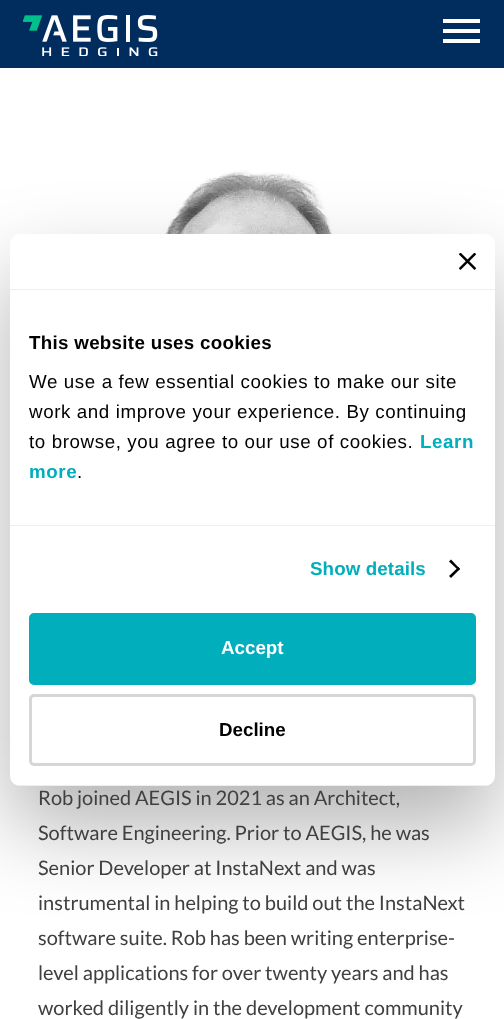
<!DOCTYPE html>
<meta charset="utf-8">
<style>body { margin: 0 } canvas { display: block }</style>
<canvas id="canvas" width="504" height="1019"></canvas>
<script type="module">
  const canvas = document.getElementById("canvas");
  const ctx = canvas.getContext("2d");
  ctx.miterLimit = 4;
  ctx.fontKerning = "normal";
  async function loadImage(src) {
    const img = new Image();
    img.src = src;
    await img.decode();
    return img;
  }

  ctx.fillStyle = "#ffffff";
  ctx.fillRect(0, 0, 504, 1019);
  ctx.fillStyle = "#002d5d";
  ctx.fillRect(0, 0, 504, 68);
  ctx.drawImage(await loadImage("img1.png"), 23, 15, 135, 41);
  ctx.fillStyle = "#ffffff";
  ctx.fillRect(443, 19, 37, 4);
  ctx.fillRect(443, 29, 37, 4);
  ctx.fillRect(443, 39, 37, 4);
  ctx.drawImage(await loadImage("img3.png"), 81, 170, 343, 64);
  ctx.fillStyle = "rgba(0, 0, 0, 0.3)";
  ctx.filter = "blur(42.5px)";
  ctx.beginPath();
  ctx.roundRect(10, 274, 485, 552, 10);
  ctx.fill();
  ctx.filter = "none";
  ctx.fillStyle = "#ffffff";
  ctx.beginPath();
  ctx.roundRect(10, 234, 485, 552, 10);
  ctx.fill();
  ctx.fillStyle = "#eeeeee";
  ctx.fillRect(10, 289, 485, 1);
  ctx.drawImage(await loadImage("img2.png"), 459, 253, 17, 17);
  ctx.fillRect(10, 525, 485, 1);
  ctx.letterSpacing = "0.3px";
  ctx.font = "bold 18.75px Liberation Sans";
  ctx.fillStyle = "#000000";
  ctx.fillText("This website uses cookies", 29, 349);
  ctx.letterSpacing = "0.6px";
  ctx.font = "18.75px Liberation Sans";
  ctx.fillText("We use a few essential cookies to make our site", 29, 388);
  ctx.fillText("work and improve your experience. By continuing", 29, 418);
  ctx.fillText("to browse, you agree to our use of cookies.", 29, 448);
  ctx.font = "bold 18.75px Liberation Sans";
  ctx.fillStyle = "#00aebc";
  ctx.fillText("Learn", 420, 448);
  ctx.fillText("more", 29, 478);
  ctx.font = "18.75px Liberation Sans";
  ctx.fillStyle = "#000000";
  ctx.fillText(".", 77, 478);
  ctx.letterSpacing = "0.1px";
  ctx.font = "bold 18.75px Liberation Sans";
  ctx.fillStyle = "#00aebc";
  ctx.fillText("Show details", 310, 575);
  ctx.fillStyle = "#000000";
  ctx.beginPath();
  ctx.moveTo(451, 559.5);
  ctx.lineTo(460, 569);
  ctx.lineTo(458.5, 570.5);
  ctx.lineTo(449, 561.5);
  ctx.closePath();
  ctx.fill();
  ctx.beginPath();
  ctx.moveTo(458.5, 567);
  ctx.lineTo(460, 569);
  ctx.lineTo(451, 578);
  ctx.lineTo(449, 576);
  ctx.closePath();
  ctx.fill();
  ctx.save();
  ctx.beginPath();
  ctx.roundRect(10, 234, 485, 552, 10);
  ctx.clip();
  ctx.fillStyle = "#eeeeee";
  ctx.fillRect(10, 785, 485, 1);
  ctx.restore();
  ctx.fillStyle = "#00aebc";
  ctx.beginPath();
  ctx.roundRect(30.5, 614.5, 444, 69, 3.5);
  ctx.fill();
  ctx.strokeStyle = "#00aebc";
  ctx.lineWidth = 3;
  ctx.stroke();
  ctx.letterSpacing = "0px";
  ctx.fillStyle = "#ffffff";
  ctx.fillText("Accept", 221, 654);
  ctx.beginPath();
  ctx.roundRect(30.5, 695.5, 444, 69, 3.5);
  ctx.strokeStyle = "#d6d6d6";
  ctx.stroke();
  ctx.fillStyle = "#000000";
  ctx.fillText("Decline", 219, 736);
  ctx.font = "20px Lato";
  ctx.fillStyle = "#404040";
  ctx.fillText("Rob joined AEGIS in 2021 as an Architect,", 38, 805);
  ctx.fillText("Software Engineering. Prior to AEGIS, he was", 38, 840);
  ctx.fillText("Senior Developer at InstaNext and was", 38, 875);
  ctx.fillText("instrumental in helping to build out the InstaNext", 38, 910);
  ctx.fillText("software suite. Rob has been writing enterprise-", 38, 945);
  ctx.fillText("level applications for over twenty years and has", 38, 980);
  ctx.fillText("worked diligently in the development community", 38, 1015);
</script>
